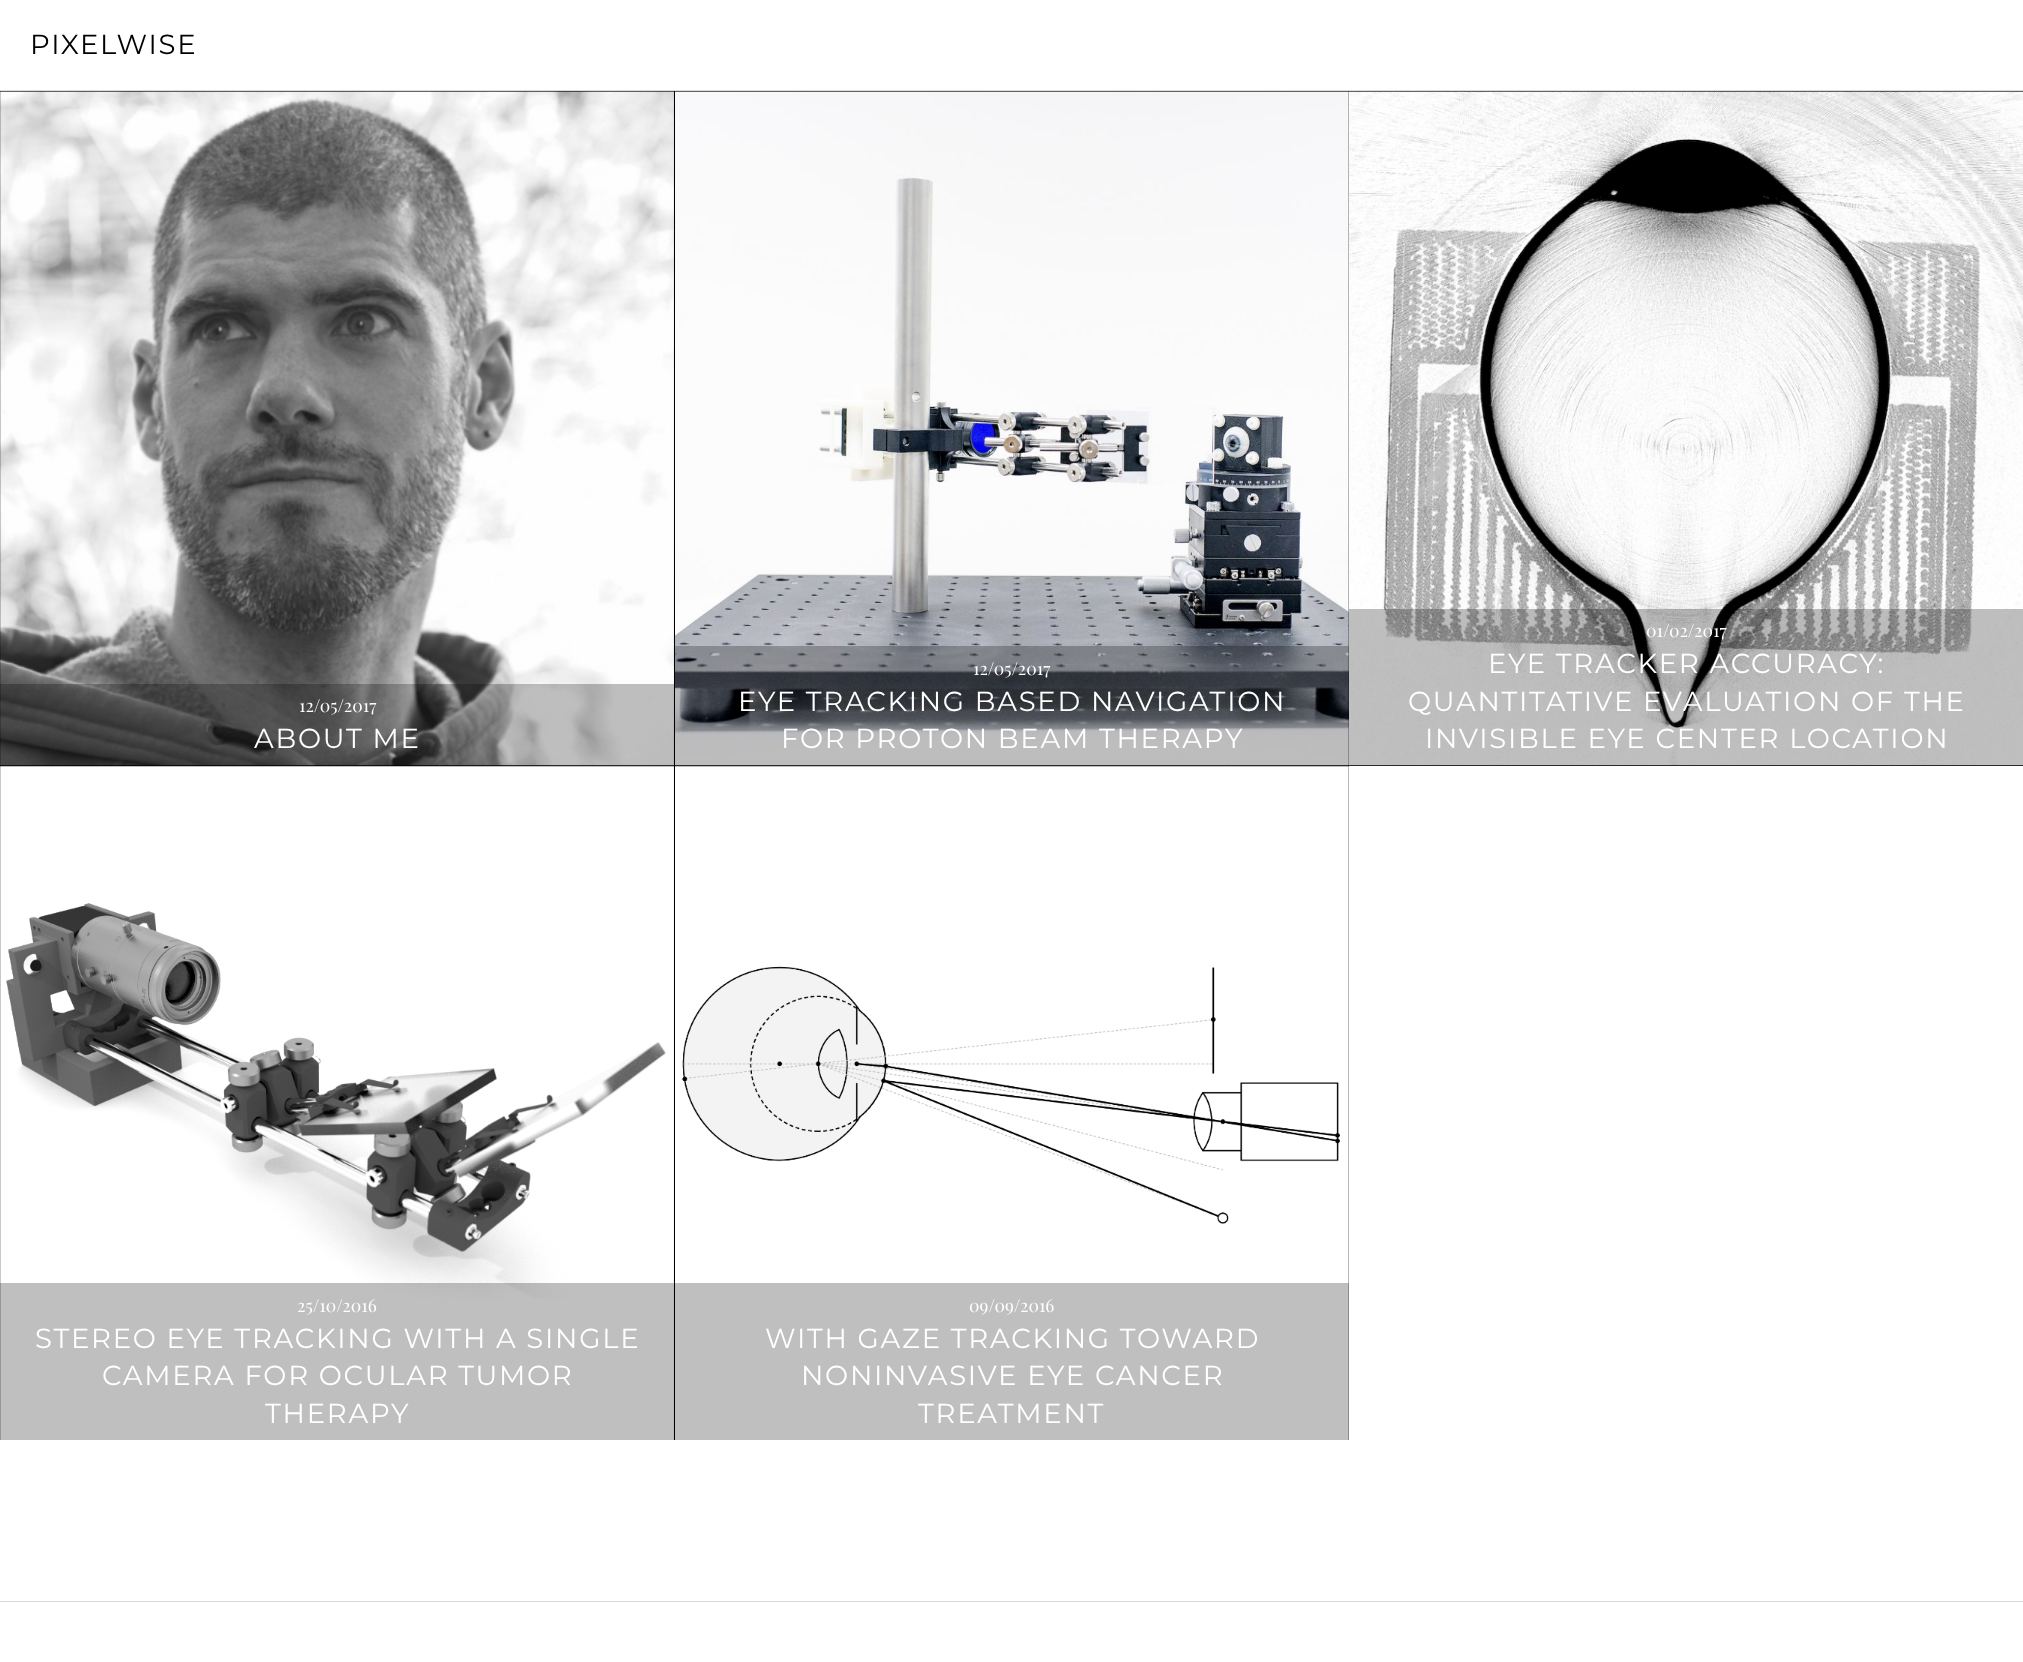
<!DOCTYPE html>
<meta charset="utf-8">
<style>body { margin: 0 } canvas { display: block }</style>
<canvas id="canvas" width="2023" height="1662"></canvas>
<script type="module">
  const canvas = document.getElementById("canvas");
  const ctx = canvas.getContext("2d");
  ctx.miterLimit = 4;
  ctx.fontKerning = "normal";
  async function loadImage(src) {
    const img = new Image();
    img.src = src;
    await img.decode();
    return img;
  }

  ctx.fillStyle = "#ffffff";
  ctx.fillRect(0, 0, 2023, 1662);
  ctx.fillStyle = "#d9d9d9";
  ctx.fillRect(0, 90, 2023, 1);
  ctx.letterSpacing = "1.75px";
  ctx.font = "27.5px Montserrat";
  ctx.fillStyle = "#000000";
  ctx.fillText("PIXELWISE", 30, 54);
  ctx.fillRect(0, 91, 2023, 675);
  ctx.drawImage(await loadImage("img1.png"), 0, 91, 674, 675);
  ctx.fillStyle = "rgba(0, 0, 0, 0.25)";
  ctx.fillRect(0, 684, 674, 82);
  ctx.letterSpacing = "0px";
  ctx.font = "17.5px Playfair Display";
  ctx.fillStyle = "#ffffff";
  ctx.fillText("12/05/2017", 299, 712);
  ctx.letterSpacing = "1.75px";
  ctx.font = "27.5px Montserrat";
  ctx.fillText("ABOUT ME", 254, 748);
  ctx.drawImage(await loadImage("img2.png"), 675, 91, 674, 675);
  ctx.fillStyle = "rgba(0, 0, 0, 0.25)";
  ctx.fillRect(675, 646, 674, 120);
  ctx.letterSpacing = "0px";
  ctx.font = "17.5px Playfair Display";
  ctx.fillStyle = "#ffffff";
  ctx.fillText("12/05/2017", 973, 675);
  ctx.letterSpacing = "1.75px";
  ctx.font = "27.5px Montserrat";
  ctx.fillText("EYE TRACKING BASED NAVIGATION", 738, 711);
  ctx.fillText("FOR PROTON BEAM THERAPY", 781, 748);
  ctx.drawImage(await loadImage("img3.png"), 1349, 91, 674, 675);
  ctx.fillStyle = "rgba(0, 0, 0, 0.25)";
  ctx.fillRect(1349, 609, 674, 157);
  ctx.letterSpacing = "0px";
  ctx.font = "17.5px Playfair Display";
  ctx.fillStyle = "#ffffff";
  ctx.fillText("01/02/2017", 1646, 637);
  ctx.letterSpacing = "1.75px";
  ctx.font = "27.5px Montserrat";
  ctx.fillText("EYE TRACKER ACCURACY:", 1488, 673);
  ctx.fillText("QUANTITATIVE EVALUATION OF THE", 1408, 711);
  ctx.fillText("INVISIBLE EYE CENTER LOCATION", 1425, 748);
  ctx.fillStyle = "#000000";
  ctx.fillRect(0, 766, 1349, 674);
  ctx.drawImage(await loadImage("img4.png"), 0, 766, 674, 674);
  ctx.fillStyle = "rgba(0, 0, 0, 0.25)";
  ctx.fillRect(0, 1283, 674, 157);
  ctx.letterSpacing = "0px";
  ctx.font = "17.5px Playfair Display";
  ctx.fillStyle = "#ffffff";
  ctx.fillText("25/10/2016", 297, 1312);
  ctx.letterSpacing = "1.75px";
  ctx.font = "27.5px Montserrat";
  ctx.fillText("STEREO EYE TRACKING WITH A SINGLE", 35, 1348);
  ctx.fillText("CAMERA FOR OCULAR TUMOR", 102, 1385);
  ctx.fillText("THERAPY", 265, 1423);
  ctx.drawImage(await loadImage("img5.png"), 675, 766, 674, 674);
  ctx.fillStyle = "rgba(0, 0, 0, 0.25)";
  ctx.fillRect(675, 1283, 674, 157);
  ctx.letterSpacing = "0px";
  ctx.font = "17.5px Playfair Display";
  ctx.fillStyle = "#ffffff";
  ctx.fillText("09/09/2016", 969, 1312);
  ctx.letterSpacing = "1.75px";
  ctx.font = "27.5px Montserrat";
  ctx.fillText("WITH GAZE TRACKING TOWARD", 765, 1348);
  ctx.fillText("NONINVASIVE EYE CANCER", 801, 1385);
  ctx.fillText("TREATMENT", 918, 1423);
  ctx.fillStyle = "#d9d9d9";
  ctx.fillRect(0, 1601, 2023, 1);
</script>
